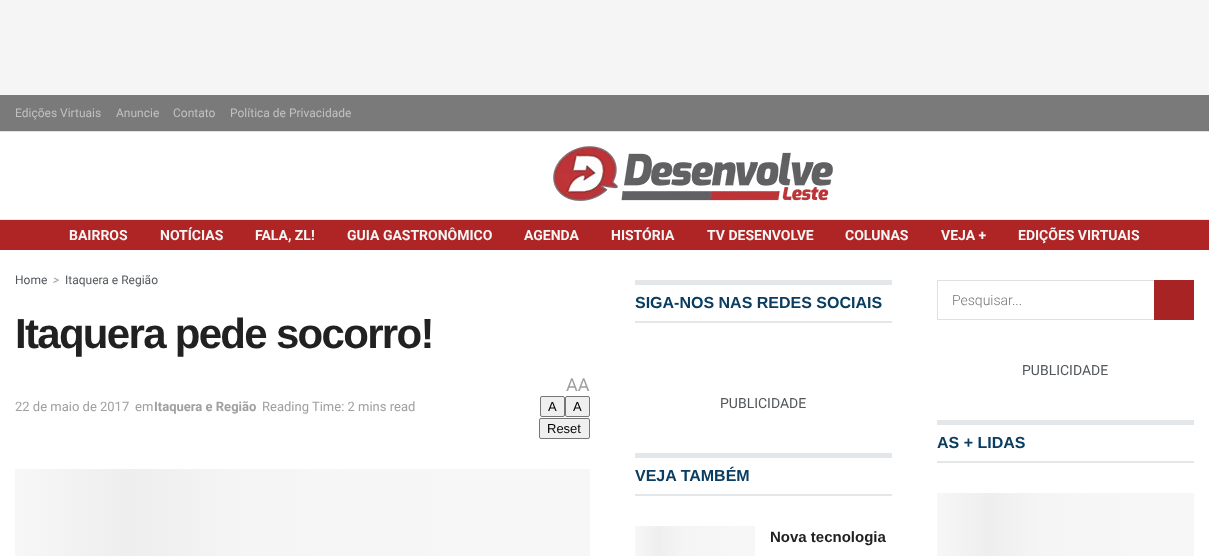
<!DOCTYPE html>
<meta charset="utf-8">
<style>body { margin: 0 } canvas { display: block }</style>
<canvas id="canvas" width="1209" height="556"></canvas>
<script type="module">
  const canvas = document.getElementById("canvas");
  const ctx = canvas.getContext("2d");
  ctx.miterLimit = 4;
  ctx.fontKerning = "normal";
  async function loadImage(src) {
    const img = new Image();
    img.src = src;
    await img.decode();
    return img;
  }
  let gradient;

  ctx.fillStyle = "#ffffff";
  ctx.fillRect(0, 0, 1209, 556);
  ctx.fillStyle = "#f5f5f5";
  ctx.fillRect(0, 0, 1209, 95);
  ctx.fillStyle = "#7a7a7a";
  ctx.fillRect(0, 95, 1209, 36);
  ctx.fillStyle = "#e0e0e0";
  ctx.fillRect(0, 131, 1209, 1);
  ctx.font = "12px Roboto";
  ctx.fillStyle = "#c1c1c1";
  ctx.fillText("Edições Virtuais", 15, 117);
  ctx.fillText("Anuncie", 116, 117);
  ctx.fillText("Contato", 173, 117);
  ctx.fillText("Política de Privacidade", 230, 117);
  ctx.drawImage(await loadImage("img1.png"), 553, 146, 280, 55);
  ctx.fillStyle = "#af2424";
  ctx.fillRect(0, 220, 1209, 30);
  ctx.fillStyle = "#e8e8e8";
  ctx.fillRect(0, 219, 1209, 1);
  ctx.font = "bold 14px Roboto";
  ctx.fillStyle = "#f5f5f5";
  ctx.fillText("BAIRROS", 69, 240);
  ctx.fillText("NOTÍCIAS", 160, 240);
  ctx.fillText("FALA, ZL!", 255, 240);
  ctx.fillText("GUIA GASTRONÔMICO", 347, 240);
  ctx.fillText("AGENDA", 524, 240);
  ctx.fillText("HISTÓRIA", 611, 240);
  ctx.fillText("TV DESENVOLVE", 707, 240);
  ctx.fillText("COLUNAS", 845, 240);
  ctx.fillText("VEJA +", 941, 240);
  ctx.fillText("EDIÇÕES VIRTUAIS", 1018, 240);
  ctx.font = "12px Roboto";
  ctx.fillStyle = "#53585c";
  ctx.fillText("Home", 15, 284);
  ctx.font = "italic 12px Roboto";
  ctx.fillStyle = "#a0a0a0";
  ctx.fillText(">", 53, 284);
  ctx.font = "12px Roboto";
  ctx.fillStyle = "#53585c";
  ctx.fillText("Itaquera e Região", 65, 284);
  ctx.letterSpacing = "-1.7px";
  ctx.font = "bold 42px Liberation Sans";
  ctx.fillStyle = "#212121";
  ctx.fillText("Itaquera pede socorro!", 15, 348);
  ctx.letterSpacing = "0px";
  ctx.font = "13px Roboto";
  ctx.fillStyle = "#a0a0a0";
  ctx.fillText("22 de maio de 2017", 15, 411);
  ctx.fillText("em", 135, 411);
  ctx.font = "bold 13px Roboto";
  ctx.fillText("Itaquera e Região", 154, 411);
  ctx.font = "13px Roboto";
  ctx.fillText("Reading Time: 2 mins read", 262, 411);
  ctx.font = "18px Roboto";
  ctx.fillText("AA", 566, 391);
  ctx.fillStyle = "#efefef";
  ctx.beginPath();
  ctx.roundRect(540.5, 396.5, 24, 20, 1.5);
  ctx.fill();
  ctx.strokeStyle = "#767676";
  ctx.stroke();
  ctx.font = "13px Liberation Sans";
  ctx.fillStyle = "#000000";
  ctx.fillText("A", 548, 411);
  ctx.fillStyle = "#efefef";
  ctx.beginPath();
  ctx.roundRect(565.5, 396.5, 24, 20, 1.5);
  ctx.fill();
  ctx.stroke();
  ctx.fillStyle = "#000000";
  ctx.fillText("A", 573, 411);
  ctx.fillStyle = "#efefef";
  ctx.beginPath();
  ctx.roundRect(539.5, 418.5, 50, 20, 1.5);
  ctx.fill();
  ctx.stroke();
  ctx.fillStyle = "#000000";
  ctx.fillText("Reset", 547, 433);
  gradient = ctx.createLinearGradient(15, 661, 590, 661);
  gradient.addColorStop(0, "#f7f7f7");
  gradient.addColorStop(0.2, "#eeeeee");
  gradient.addColorStop(0.4, "#f5f5f5");
  gradient.addColorStop(1, "#f7f7f7");
  ctx.fillStyle = gradient;
  ctx.fillRect(15, 469, 575, 87);
  ctx.fillStyle = "#e4e7ea";
  ctx.fillRect(635, 280, 257, 5);
  ctx.fillRect(635, 321, 257, 2);
  ctx.font = "bold 16px Liberation Sans";
  ctx.fillStyle = "#0a3d61";
  ctx.fillText("SIGA-NOS NAS REDES SOCIAIS", 635, 308);
  ctx.font = "14px Roboto";
  ctx.fillStyle = "#53585c";
  ctx.fillText("PUBLICIDADE", 720, 408);
  ctx.fillStyle = "#e4e7ea";
  ctx.fillRect(635, 453, 257, 5);
  ctx.fillRect(635, 494, 257, 2);
  ctx.font = "bold 16px Liberation Sans";
  ctx.fillStyle = "#0a3d61";
  ctx.fillText("VEJA TAMBÉM", 635, 481);
  gradient = ctx.createLinearGradient(635, 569, 755, 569);
  gradient.addColorStop(0, "#f7f7f7");
  gradient.addColorStop(0.2, "#eeeeee");
  gradient.addColorStop(0.4, "#f5f5f5");
  gradient.addColorStop(1, "#f7f7f7");
  ctx.fillStyle = gradient;
  ctx.fillRect(635, 526, 120, 30);
  ctx.font = "bold 15px Liberation Sans";
  ctx.fillStyle = "#212121";
  ctx.fillText("Nova tecnologia", 770, 542);
  ctx.strokeStyle = "#e0e0e0";
  ctx.strokeRect(937.5, 280.5, 256, 39);
  ctx.font = "300 14px Roboto";
  ctx.fillStyle = "#757575";
  ctx.fillText("Pesquisar...", 952, 305);
  ctx.fillStyle = "#a82323";
  ctx.fillRect(1154, 280, 40, 40);
  ctx.font = "14px Roboto";
  ctx.fillStyle = "#53585c";
  ctx.fillText("PUBLICIDADE", 1022, 375);
  ctx.fillStyle = "#e4e7ea";
  ctx.fillRect(937, 420, 257, 5);
  ctx.fillRect(937, 461, 257, 2);
  ctx.font = "bold 16px Liberation Sans";
  ctx.fillStyle = "#0a3d61";
  ctx.fillText("AS + LIDAS", 937, 448);
  gradient = ctx.createLinearGradient(937, 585, 1194, 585);
  gradient.addColorStop(0, "#f7f7f7");
  gradient.addColorStop(0.2, "#eeeeee");
  gradient.addColorStop(0.4, "#f5f5f5");
  gradient.addColorStop(1, "#f7f7f7");
  ctx.fillStyle = gradient;
  ctx.fillRect(937, 493, 257, 63);
</script>
